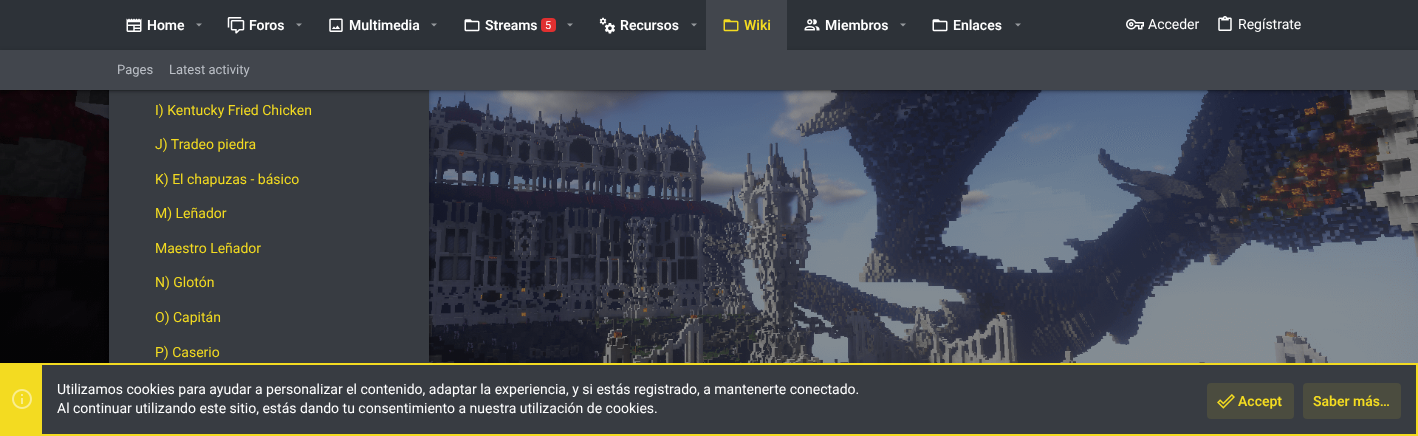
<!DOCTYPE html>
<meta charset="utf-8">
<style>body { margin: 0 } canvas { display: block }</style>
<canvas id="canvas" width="1418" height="436"></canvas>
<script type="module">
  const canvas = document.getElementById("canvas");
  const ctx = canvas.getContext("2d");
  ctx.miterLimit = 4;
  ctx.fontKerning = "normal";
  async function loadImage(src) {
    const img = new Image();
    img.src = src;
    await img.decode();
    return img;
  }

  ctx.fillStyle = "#ffffff";
  ctx.fillRect(0, 0, 1418, 436);
  ctx.drawImage(await loadImage("img1.png"), 0, 90, 1418, 273);
  ctx.fillStyle = "rgba(0, 0, 0, 0.2)";
  ctx.filter = "blur(2.5px)";
  ctx.beginPath();
  ctx.roundRect(109, -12, 320, 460, 4);
  ctx.fill();
  ctx.filter = "none";
  ctx.fillStyle = "rgba(0, 0, 0, 0.14)";
  ctx.filter = "blur(1px)";
  ctx.beginPath();
  ctx.roundRect(109, -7, 320, 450, 4);
  ctx.fill();
  ctx.filter = "none";
  ctx.fillStyle = "#2d3238";
  ctx.fillRect(0, 0, 1418, 50);
  ctx.drawImage(await loadImage("img2.png"), 126, 18, 16, 14);
  ctx.font = "600 14px Roboto";
  ctx.fillStyle = "#ffffff";
  ctx.fillText("Home", 147, 30);
  ctx.fillStyle = "#96999c";
  ctx.beginPath();
  ctx.moveTo(196, 23.5);
  ctx.lineTo(199, 26.5);
  ctx.lineTo(202, 23.5);
  ctx.closePath();
  ctx.fill();
  ctx.drawImage(await loadImage("img3.png"), 227, 17, 18, 17);
  ctx.fillStyle = "#ffffff";
  ctx.fillText("Foros", 249, 30);
  ctx.fillStyle = "#96999c";
  ctx.beginPath();
  ctx.moveTo(296, 23.5);
  ctx.lineTo(299, 26.5);
  ctx.lineTo(302, 23.5);
  ctx.closePath();
  ctx.fill();
  ctx.drawImage(await loadImage("img4.png"), 329, 18, 14, 14);
  ctx.fillStyle = "#ffffff";
  ctx.fillText("Multimedia", 349, 30);
  ctx.fillStyle = "#96999c";
  ctx.beginPath();
  ctx.moveTo(431, 23.5);
  ctx.lineTo(434, 26.5);
  ctx.lineTo(437, 23.5);
  ctx.closePath();
  ctx.fill();
  ctx.drawImage(await loadImage("img5.png"), 464, 19, 16, 13);
  ctx.fillStyle = "#ffffff";
  ctx.fillText("Streams", 485, 30);
  ctx.fillStyle = "#e03030";
  ctx.beginPath();
  ctx.roundRect(541, 18, 15, 14, 4);
  ctx.fill();
  ctx.font = "11px Roboto";
  ctx.fillStyle = "#ffffff";
  ctx.fillText("5", 545, 29);
  ctx.fillStyle = "#96999c";
  ctx.beginPath();
  ctx.moveTo(567, 23.5);
  ctx.lineTo(570, 26.5);
  ctx.lineTo(573, 23.5);
  ctx.closePath();
  ctx.fill();
  ctx.drawImage(await loadImage("img6.png"), 599, 17, 16, 17);
  ctx.font = "600 14px Roboto";
  ctx.fillStyle = "#ffffff";
  ctx.fillText("Recursos", 620, 30);
  ctx.fillStyle = "#96999c";
  ctx.beginPath();
  ctx.moveTo(691, 23.5);
  ctx.lineTo(694, 26.5);
  ctx.lineTo(697, 23.5);
  ctx.closePath();
  ctx.fill();
  ctx.fillStyle = "#383c42";
  ctx.fillRect(109, 90, 320, 273);
  ctx.fillStyle = "rgba(0, 0, 0, 0.2)";
  ctx.filter = "blur(2.5px)";
  ctx.beginPath();
  ctx.rect(0, 51, 1418, 40);
  ctx.fill();
  ctx.filter = "none";
  ctx.fillStyle = "rgba(0, 0, 0, 0.14)";
  ctx.filter = "blur(1px)";
  ctx.beginPath();
  ctx.rect(0, 52, 1418, 40);
  ctx.fill();
  ctx.filter = "none";
  ctx.fillStyle = "#42464d";
  ctx.fillRect(706, 0, 81, 50);
  ctx.drawImage(await loadImage("img7.png"), 723, 19, 16, 13);
  ctx.fillStyle = "#f3db21";
  ctx.fillText("Wiki", 744, 30);
  ctx.drawImage(await loadImage("img8.png"), 804, 19, 16, 12);
  ctx.fillStyle = "#ffffff";
  ctx.fillText("Miembros", 825, 30);
  ctx.fillStyle = "#96999c";
  ctx.beginPath();
  ctx.moveTo(900, 23.5);
  ctx.lineTo(903, 26.5);
  ctx.lineTo(906, 23.5);
  ctx.closePath();
  ctx.fill();
  ctx.drawImage(await loadImage("img5.png"), 932, 19, 16, 13);
  ctx.fillStyle = "#ffffff";
  ctx.fillText("Enlaces", 953, 30);
  ctx.fillStyle = "#96999c";
  ctx.beginPath();
  ctx.moveTo(1015, 23.5);
  ctx.lineTo(1018, 26.5);
  ctx.lineTo(1021, 23.5);
  ctx.closePath();
  ctx.fill();
  ctx.drawImage(await loadImage("img9.png"), 1126, 19, 18, 11);
  ctx.font = "14px Roboto";
  ctx.fillStyle = "#ffffff";
  ctx.fillText("Acceder", 1148, 29);
  ctx.drawImage(await loadImage("img10.png"), 1218, 16, 14, 15);
  ctx.fillText("Regístrate", 1238, 29);
  ctx.fillStyle = "rgba(0, 0, 0, 0.12)";
  ctx.filter = "blur(0.5px)";
  ctx.beginPath();
  ctx.rect(2, 55, 1414, 36);
  ctx.fill();
  ctx.filter = "none";
  ctx.fillStyle = "#42464d";
  ctx.fillRect(0, 50, 1418, 40);
  ctx.font = "13px Roboto";
  ctx.fillStyle = "#bcc0c7";
  ctx.fillText("Pages", 117, 74);
  ctx.fillText("Latest activity", 169, 74);
  ctx.font = "14px Roboto";
  ctx.fillStyle = "#f3db21";
  ctx.fillText("I) Kentucky Fried Chicken", 155, 115);
  ctx.fillText("J) Tradeo piedra", 155, 149);
  ctx.fillText("K) El chapuzas - básico", 155, 184);
  ctx.fillText("M) Leñador", 155, 218);
  ctx.fillText("Maestro Leñador", 155, 253);
  ctx.fillText("N) Glotón", 155, 287);
  ctx.fillText("O) Capitán", 155, 322);
  ctx.fillText("P) Caserio", 155, 357);
  ctx.fillStyle = "#383c42";
  ctx.fillRect(42, 365, 1374, 69);
  ctx.strokeStyle = "#f3db21";
  ctx.lineWidth = 2;
  ctx.strokeRect(1, 364, 1416, 71);
  ctx.fillStyle = "#f3db21";
  ctx.fillRect(2, 365, 40, 69);
  ctx.drawImage(await loadImage("img11.png"), 12, 389, 20, 20);
  ctx.fillStyle = "#ffffff";
  ctx.fillText("Utilizamos cookies para ayudar a personalizar el contenido, adaptar la experiencia, y si estás registrado, a mantenerte conectado.", 57, 394);
  ctx.fillText("Al continuar utilizando este sitio, estás dando tu consentimiento a nuestra utilización de cookies.", 57, 413);
  ctx.fillStyle = "#4b4c3f";
  ctx.beginPath();
  ctx.roundRect(1207, 383, 87, 36, 4);
  ctx.fill();
  ctx.drawImage(await loadImage("img12.png"), 1217, 394, 18, 15);
  ctx.font = "600 14px Roboto";
  ctx.fillStyle = "#f3db21";
  ctx.fillText("Accept", 1238, 406);
  ctx.fillStyle = "#4b4c3f";
  ctx.beginPath();
  ctx.roundRect(1303, 383, 98, 36, 4);
  ctx.fill();
  ctx.fillStyle = "#f3db21";
  ctx.fillText("Saber más…", 1313, 406);
</script>
